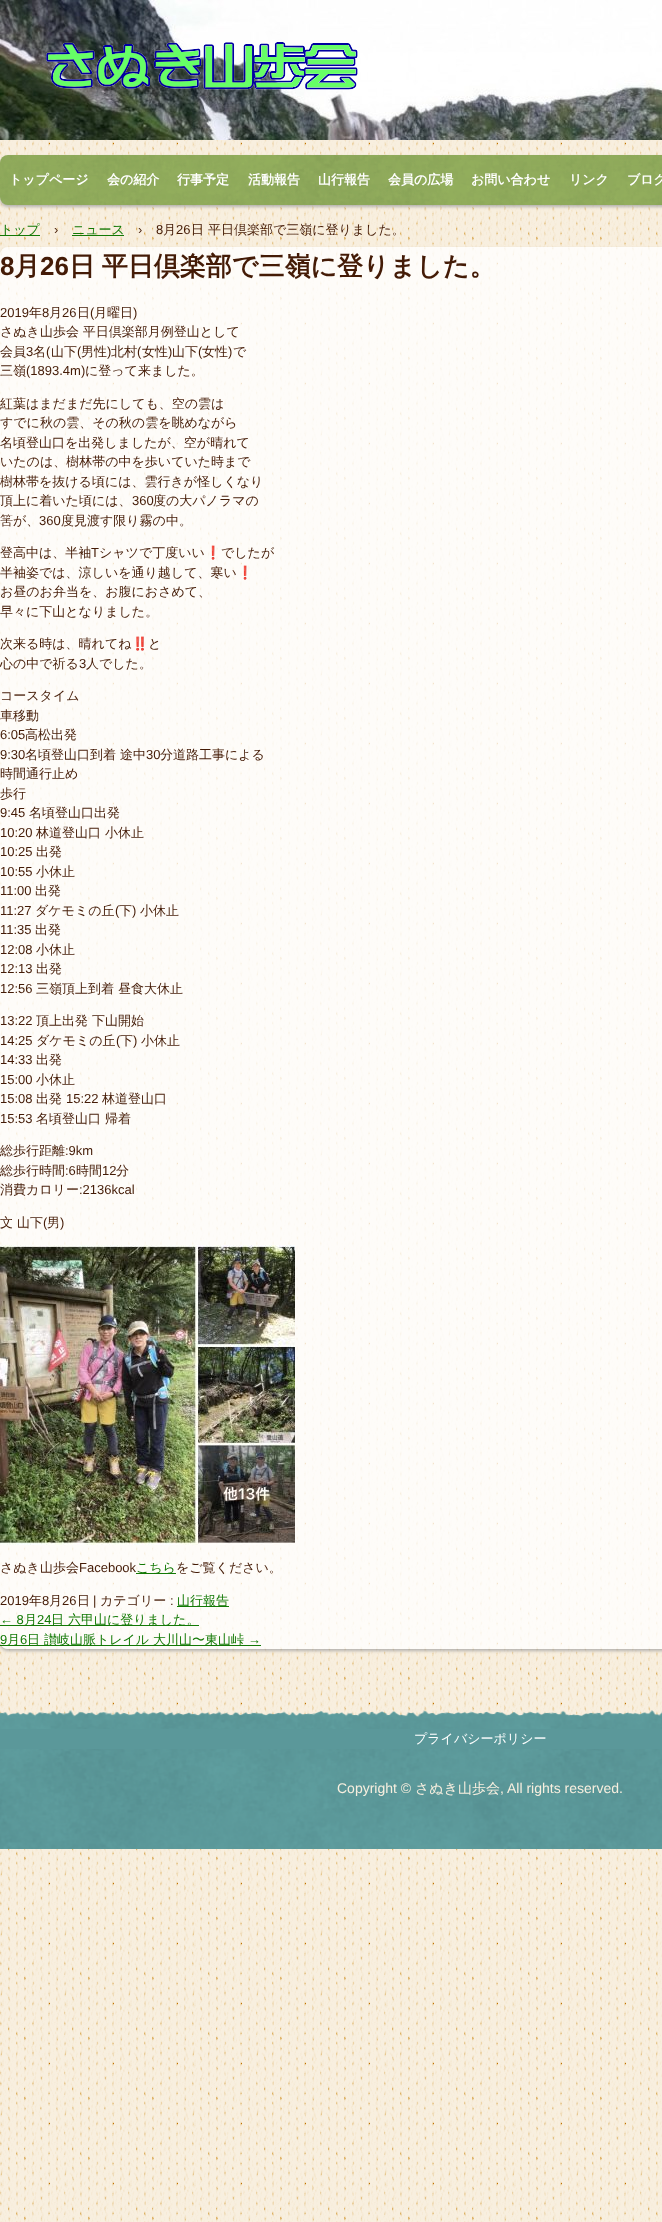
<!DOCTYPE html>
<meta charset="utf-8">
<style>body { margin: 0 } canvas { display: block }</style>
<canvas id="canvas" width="662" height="2222"></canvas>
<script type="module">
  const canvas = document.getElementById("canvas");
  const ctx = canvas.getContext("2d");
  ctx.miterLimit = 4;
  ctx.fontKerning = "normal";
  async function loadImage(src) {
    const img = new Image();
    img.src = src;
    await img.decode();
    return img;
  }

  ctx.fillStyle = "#ffffff";
  ctx.fillRect(0, 0, 662, 2222);
  ctx.drawImage(await loadImage("img1.png"), 0, 140, 662, 2082);
  ctx.drawImage(await loadImage("img2.png"), 0, 0, 662, 140);
  ctx.drawImage(await loadImage("img3.png"), 46, 42, 312, 48);
  ctx.fillStyle = "rgba(160, 160, 160, 0.75)";
  ctx.filter = "blur(1.5px)";
  ctx.beginPath();
  ctx.roundRect(0, 157, 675, 50, 8);
  ctx.fill();
  ctx.filter = "none";
  ctx.drawImage(await loadImage("img4.png"), 0, 155, 662, 50);
  ctx.font = "bold 13px WenQuanYi Zen Hei";
  ctx.fillStyle = "#ffffff";
  ctx.fillText("トップページ", 9, 184);
  ctx.fillText("会の紹介", 107, 184);
  ctx.fillText("行事予定", 177, 184);
  ctx.fillText("活動報告", 248, 184);
  ctx.fillText("山行報告", 318, 184);
  ctx.fillText("会員の広場", 388, 184);
  ctx.fillText("お問い合わせ", 471, 184);
  ctx.fillText("リンク", 569, 184);
  ctx.fillText("ブログ", 627, 184);
  ctx.fillStyle = "#137905";
  ctx.fillRect(0, 235, 40, 1);
  ctx.font = "500 13px WenQuanYi Zen Hei";
  ctx.fillText("トップ", 0, 234);
  ctx.font = "13px Liberation Sans";
  ctx.fillStyle = "#441b06";
  ctx.fillText("›", 54, 234);
  ctx.font = "500 13px WenQuanYi Zen Hei";
  ctx.fillStyle = "#137905";
  ctx.fillText("ニュース", 72, 234);
  ctx.fillRect(72, 235, 52, 1);
  ctx.font = "13px Liberation Sans";
  ctx.fillStyle = "#441b06";
  ctx.fillText("›", 138, 234);
  ctx.fillText("8", 156, 234);
  ctx.font = "500 13px WenQuanYi Zen Hei";
  ctx.fillText("月", 163, 234);
  ctx.font = "13px Liberation Sans";
  ctx.fillText("26", 176, 234);
  ctx.font = "500 13px WenQuanYi Zen Hei";
  ctx.fillText("日 平日倶楽部で三嶺に登りました。", 191, 234);
  ctx.save();
  ctx.beginPath();
  ctx.moveTo(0, 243);
  ctx.lineTo(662, 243);
  ctx.lineTo(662, 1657);
  ctx.lineTo(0, 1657);
  ctx.closePath();
  ctx.moveTo(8, 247);
  ctx.lineTo(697, 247);
  ctx.bezierCurveTo(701.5, 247, 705, 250.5, 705, 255);
  ctx.lineTo(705, 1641);
  ctx.bezierCurveTo(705, 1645.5, 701.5, 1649, 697, 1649);
  ctx.lineTo(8, 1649);
  ctx.bezierCurveTo(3.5, 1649, 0, 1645.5, 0, 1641);
  ctx.lineTo(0, 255);
  ctx.bezierCurveTo(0, 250.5, 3.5, 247, 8, 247);
  ctx.closePath();
  ctx.clip("evenodd");
  ctx.fillStyle = "rgba(160, 160, 160, 0.75)";
  ctx.filter = "blur(1.5px)";
  ctx.beginPath();
  ctx.roundRect(0, 249, 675, 1402, 8);
  ctx.fill();
  ctx.filter = "none";
  ctx.restore();
  ctx.fillStyle = "rgba(255, 255, 255, 0.8)";
  ctx.beginPath();
  ctx.roundRect(0, 247, 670, 1402, 8);
  ctx.fill();
  ctx.font = "bold 26px Liberation Sans";
  ctx.fillStyle = "#441b06";
  ctx.fillText("8", 0, 275);
  ctx.font = "bold 26px WenQuanYi Zen Hei";
  ctx.fillText("月", 14, 275);
  ctx.font = "bold 26px Liberation Sans";
  ctx.fillText("26", 40, 275);
  ctx.wordSpacing = "-1px";
  ctx.font = "bold 26px WenQuanYi Zen Hei";
  ctx.fillText("日 平日倶楽部で三嶺に登りました。", 69, 275);
  ctx.wordSpacing = "0px";
  ctx.font = "13px Liberation Sans";
  ctx.fillText("2019", 0, 317);
  ctx.font = "500 13px WenQuanYi Zen Hei";
  ctx.fillText("年", 29, 317);
  ctx.font = "13px Liberation Sans";
  ctx.fillText("8", 42, 317);
  ctx.font = "500 13px WenQuanYi Zen Hei";
  ctx.fillText("月", 49, 317);
  ctx.font = "13px Liberation Sans";
  ctx.fillText("26", 62, 317);
  ctx.font = "500 13px WenQuanYi Zen Hei";
  ctx.fillText("日", 77, 317);
  ctx.font = "13px Liberation Sans";
  ctx.fillText("(", 90, 317);
  ctx.font = "500 13px WenQuanYi Zen Hei";
  ctx.fillText("月曜日", 94, 317);
  ctx.font = "13px Liberation Sans";
  ctx.fillText(")", 133, 317);
  ctx.font = "500 13px WenQuanYi Zen Hei";
  ctx.fillText("さぬき山歩会 平日倶楽部月例登山として", 0, 336);
  ctx.fillText("会員", 0, 356);
  ctx.font = "13px Liberation Sans";
  ctx.fillText("3", 26, 356);
  ctx.font = "500 13px WenQuanYi Zen Hei";
  ctx.fillText("名", 33, 356);
  ctx.font = "13px Liberation Sans";
  ctx.fillText("(", 46, 356);
  ctx.font = "500 13px WenQuanYi Zen Hei";
  ctx.fillText("山下", 51, 356);
  ctx.font = "13px Liberation Sans";
  ctx.fillText("(", 77, 356);
  ctx.font = "500 13px WenQuanYi Zen Hei";
  ctx.fillText("男性", 81, 356);
  ctx.font = "13px Liberation Sans";
  ctx.fillText(")", 107, 356);
  ctx.font = "500 13px WenQuanYi Zen Hei";
  ctx.fillText("北村", 111, 356);
  ctx.font = "13px Liberation Sans";
  ctx.fillText("(", 137, 356);
  ctx.font = "500 13px WenQuanYi Zen Hei";
  ctx.fillText("女性", 142, 356);
  ctx.font = "13px Liberation Sans";
  ctx.fillText(")", 168, 356);
  ctx.font = "500 13px WenQuanYi Zen Hei";
  ctx.fillText("山下", 172, 356);
  ctx.font = "13px Liberation Sans";
  ctx.fillText("(", 198, 356);
  ctx.font = "500 13px WenQuanYi Zen Hei";
  ctx.fillText("女性", 202, 356);
  ctx.font = "13px Liberation Sans";
  ctx.fillText(")", 228, 356);
  ctx.font = "500 13px WenQuanYi Zen Hei";
  ctx.fillText("で", 233, 356);
  ctx.fillText("三嶺", 0, 375);
  ctx.font = "13px Liberation Sans";
  ctx.fillText("(1893.4m)", 26, 375);
  ctx.font = "500 13px WenQuanYi Zen Hei";
  ctx.fillText("に登って来ました。", 85, 375);
  ctx.fillText("紅葉はまだまだ先にしても、空の雲は", 0, 408);
  ctx.fillText("すでに秋の雲、その秋の雲を眺めながら", 0, 427);
  ctx.fillText("名頃登山口を出発しましたが、空が晴れて", 0, 447);
  ctx.fillText("いたのは、樹林帯の中を歩いていた時まで", 0, 466);
  ctx.fillText("樹林帯を抜ける頃には、雲行きが怪しくなり", 0, 486);
  ctx.fillText("頂上に着いた頃には、", 0, 505);
  ctx.font = "13px Liberation Sans";
  ctx.fillText("360", 132, 505);
  ctx.font = "500 13px WenQuanYi Zen Hei";
  ctx.fillText("度の大パノラマの", 153, 505);
  ctx.fillText("筈が、", 0, 525);
  ctx.font = "13px Liberation Sans";
  ctx.fillText("360", 39, 525);
  ctx.font = "500 13px WenQuanYi Zen Hei";
  ctx.fillText("度見渡す限り霧の中。", 61, 525);
  ctx.fillText("登高中は、半袖", 0, 557);
  ctx.font = "13px Liberation Sans";
  ctx.fillText("T", 91, 557);
  ctx.font = "500 13px WenQuanYi Zen Hei";
  ctx.fillText("シャツで丁度いい", 99, 557);
  ctx.font = "13px Noto Color Emoji";
  ctx.fillText("❗️", 205, 557);
  ctx.font = "500 13px WenQuanYi Zen Hei";
  ctx.fillText("でしたが", 221, 557);
  ctx.fillText("半袖姿では、涼しいを通り越して、寒い", 0, 577);
  ctx.font = "13px Noto Color Emoji";
  ctx.fillText("❗️", 237, 577);
  ctx.font = "500 13px WenQuanYi Zen Hei";
  ctx.fillText("お昼のお弁当を、お腹におさめて、", 0, 596);
  ctx.fillText("早々に下山となりました。", 0, 616);
  ctx.fillText("次来る時は、晴れてね", 0, 648);
  ctx.font = "13px Noto Color Emoji";
  ctx.fillText("‼️", 132, 648);
  ctx.font = "500 13px WenQuanYi Zen Hei";
  ctx.fillText("と", 148, 648);
  ctx.fillText("心の中で祈る", 0, 668);
  ctx.font = "13px Liberation Sans";
  ctx.fillText("3", 79, 668);
  ctx.font = "500 13px WenQuanYi Zen Hei";
  ctx.fillText("人でした。", 86, 668);
  ctx.fillText("コースタイム", 0, 700);
  ctx.fillText("車移動", 0, 720);
  ctx.font = "13px Liberation Sans";
  ctx.fillText("6:05", 0, 739);
  ctx.font = "500 13px WenQuanYi Zen Hei";
  ctx.fillText("高松出発", 25, 739);
  ctx.font = "13px Liberation Sans";
  ctx.fillText("9:30", 0, 759);
  ctx.font = "500 13px WenQuanYi Zen Hei";
  ctx.fillText("名頃登山口到着 途中", 25, 759);
  ctx.font = "13px Liberation Sans";
  ctx.fillText("30", 146, 759);
  ctx.font = "500 13px WenQuanYi Zen Hei";
  ctx.fillText("分道路工事による", 160, 759);
  ctx.fillText("時間通行止め", 0, 778);
  ctx.fillText("歩行", 0, 798);
  ctx.font = "13px Liberation Sans";
  ctx.fillText("9:45", 0, 817);
  ctx.font = "500 13px WenQuanYi Zen Hei";
  ctx.fillText("名頃登山口出発", 29, 817);
  ctx.font = "13px Liberation Sans";
  ctx.fillText("10:20", 0, 837);
  ctx.font = "500 13px WenQuanYi Zen Hei";
  ctx.fillText("林道登山口 小休止", 36, 837);
  ctx.font = "13px Liberation Sans";
  ctx.fillText("10:25", 0, 856);
  ctx.font = "500 13px WenQuanYi Zen Hei";
  ctx.fillText("出発", 36, 856);
  ctx.font = "13px Liberation Sans";
  ctx.fillText("10:55", 0, 876);
  ctx.font = "500 13px WenQuanYi Zen Hei";
  ctx.fillText("小休止", 36, 876);
  ctx.font = "13px Liberation Sans";
  ctx.fillText("11:00", 0, 895);
  ctx.font = "500 13px WenQuanYi Zen Hei";
  ctx.fillText("出発", 35, 895);
  ctx.font = "13px Liberation Sans";
  ctx.fillText("11:27", 0, 915);
  ctx.font = "500 13px WenQuanYi Zen Hei";
  ctx.fillText("ダケモミの丘", 35, 915);
  ctx.font = "13px Liberation Sans";
  ctx.fillText("(", 115, 915);
  ctx.font = "500 13px WenQuanYi Zen Hei";
  ctx.fillText("下", 119, 915);
  ctx.font = "13px Liberation Sans";
  ctx.fillText(")", 132, 915);
  ctx.font = "500 13px WenQuanYi Zen Hei";
  ctx.fillText("小休止", 140, 915);
  ctx.font = "13px Liberation Sans";
  ctx.fillText("11:35", 0, 934);
  ctx.font = "500 13px WenQuanYi Zen Hei";
  ctx.fillText("出発", 35, 934);
  ctx.font = "13px Liberation Sans";
  ctx.fillText("12:08", 0, 954);
  ctx.font = "500 13px WenQuanYi Zen Hei";
  ctx.fillText("小休止", 36, 954);
  ctx.font = "13px Liberation Sans";
  ctx.fillText("12:13", 0, 973);
  ctx.font = "500 13px WenQuanYi Zen Hei";
  ctx.fillText("出発", 36, 973);
  ctx.font = "13px Liberation Sans";
  ctx.fillText("12:56", 0, 993);
  ctx.font = "500 13px WenQuanYi Zen Hei";
  ctx.fillText("三嶺頂上到着 昼食大休止", 36, 993);
  ctx.font = "13px Liberation Sans";
  ctx.fillText("13:22", 0, 1025);
  ctx.font = "500 13px WenQuanYi Zen Hei";
  ctx.fillText("頂上出発 下山開始", 36, 1025);
  ctx.font = "13px Liberation Sans";
  ctx.fillText("14:25", 0, 1045);
  ctx.font = "500 13px WenQuanYi Zen Hei";
  ctx.fillText("ダケモミの丘", 36, 1045);
  ctx.font = "13px Liberation Sans";
  ctx.fillText("(", 116, 1045);
  ctx.font = "500 13px WenQuanYi Zen Hei";
  ctx.fillText("下", 120, 1045);
  ctx.font = "13px Liberation Sans";
  ctx.fillText(")", 133, 1045);
  ctx.font = "500 13px WenQuanYi Zen Hei";
  ctx.fillText("小休止", 141, 1045);
  ctx.font = "13px Liberation Sans";
  ctx.fillText("14:33", 0, 1064);
  ctx.font = "500 13px WenQuanYi Zen Hei";
  ctx.fillText("出発", 36, 1064);
  ctx.font = "13px Liberation Sans";
  ctx.fillText("15:00", 0, 1084);
  ctx.font = "500 13px WenQuanYi Zen Hei";
  ctx.fillText("小休止", 36, 1084);
  ctx.font = "13px Liberation Sans";
  ctx.fillText("15:08", 0, 1103);
  ctx.font = "500 13px WenQuanYi Zen Hei";
  ctx.fillText("出発", 36, 1103);
  ctx.font = "13px Liberation Sans";
  ctx.fillText("15:22", 66, 1103);
  ctx.font = "500 13px WenQuanYi Zen Hei";
  ctx.fillText("林道登山口", 102, 1103);
  ctx.font = "13px Liberation Sans";
  ctx.fillText("15:53", 0, 1123);
  ctx.font = "500 13px WenQuanYi Zen Hei";
  ctx.fillText("名頃登山口 帰着", 36, 1123);
  ctx.fillText("総歩行距離", 0, 1155);
  ctx.font = "13px Liberation Sans";
  ctx.fillText(":9km", 65, 1155);
  ctx.font = "500 13px WenQuanYi Zen Hei";
  ctx.fillText("総歩行時間", 0, 1175);
  ctx.font = "13px Liberation Sans";
  ctx.fillText(":6", 65, 1175);
  ctx.font = "500 13px WenQuanYi Zen Hei";
  ctx.fillText("時間", 76, 1175);
  ctx.font = "13px Liberation Sans";
  ctx.fillText("12", 102, 1175);
  ctx.font = "500 13px WenQuanYi Zen Hei";
  ctx.fillText("分", 116, 1175);
  ctx.fillText("消費カロリー", 0, 1194);
  ctx.font = "13px Liberation Sans";
  ctx.fillText(":2136kcal", 79, 1194);
  ctx.font = "500 13px WenQuanYi Zen Hei";
  ctx.fillText("文 山下", 0, 1227);
  ctx.font = "13px Liberation Sans";
  ctx.fillText("(", 43, 1227);
  ctx.font = "500 13px WenQuanYi Zen Hei";
  ctx.fillText("男", 47, 1227);
  ctx.font = "13px Liberation Sans";
  ctx.fillText(")", 60, 1227);
  ctx.drawImage(await loadImage("img5.png"), 0, 1245, 295, 300);
  ctx.font = "500 13px WenQuanYi Zen Hei";
  ctx.fillText("さぬき山歩会", 0, 1572);
  ctx.font = "13px Liberation Sans";
  ctx.fillText("Facebook", 79, 1572);
  ctx.fillStyle = "#137905";
  ctx.fillRect(136, 1573, 40, 1);
  ctx.font = "500 13px WenQuanYi Zen Hei";
  ctx.fillText("こちら", 136, 1572);
  ctx.fillStyle = "#441b06";
  ctx.fillText("をご覧ください。", 176, 1572);
  ctx.font = "13px Liberation Sans";
  ctx.fillText("2019", 0, 1605);
  ctx.font = "500 13px WenQuanYi Zen Hei";
  ctx.fillText("年", 29, 1605);
  ctx.font = "13px Liberation Sans";
  ctx.fillText("8", 42, 1605);
  ctx.font = "500 13px WenQuanYi Zen Hei";
  ctx.fillText("月", 49, 1605);
  ctx.font = "13px Liberation Sans";
  ctx.fillText("26", 62, 1605);
  ctx.font = "500 13px WenQuanYi Zen Hei";
  ctx.fillText("日", 77, 1605);
  ctx.font = "13px Liberation Sans";
  ctx.fillText("|", 93, 1605);
  ctx.font = "500 13px WenQuanYi Zen Hei";
  ctx.fillText("カテゴリー", 100, 1605);
  ctx.font = "13px Liberation Sans";
  ctx.fillText(":", 170, 1605);
  ctx.fillStyle = "#137905";
  ctx.fillRect(177, 1606, 52, 1);
  ctx.font = "500 13px WenQuanYi Zen Hei";
  ctx.fillText("山行報告", 177, 1605);
  ctx.font = "13px Liberation Sans";
  ctx.fillText("← 8", 0, 1624);
  ctx.fillRect(0, 1625, 199, 1);
  ctx.font = "500 13px WenQuanYi Zen Hei";
  ctx.fillText("月", 24, 1624);
  ctx.font = "13px Liberation Sans";
  ctx.fillText("24", 37, 1624);
  ctx.font = "500 13px WenQuanYi Zen Hei";
  ctx.fillText("日 六甲山に登りました。", 51, 1624);
  ctx.font = "13px Liberation Sans";
  ctx.fillText("9", 0, 1644);
  ctx.fillRect(0, 1645, 261, 1);
  ctx.font = "500 13px WenQuanYi Zen Hei";
  ctx.fillText("月", 7, 1644);
  ctx.font = "13px Liberation Sans";
  ctx.fillText("6", 20, 1644);
  ctx.font = "500 13px WenQuanYi Zen Hei";
  ctx.fillText("日 讃岐山脈トレイル 大川山〜東山峠", 27, 1644);
  ctx.font = "13px Liberation Sans";
  ctx.fillText("→", 248, 1644);
  ctx.drawImage(await loadImage("img6.png"), 0, 1710, 662, 139);
  ctx.fillStyle = "#5b989a";
  ctx.fillRect(0, 1729, 662, 20);
  ctx.font = "500 13px WenQuanYi Zen Hei";
  ctx.fillStyle = "#ffffff";
  ctx.fillText("プライバシーポリシー", 414, 1743);
  ctx.font = "14px Liberation Sans";
  ctx.fillStyle = "#f8efdf";
  ctx.fillText("Copyright ©", 337, 1793);
  ctx.font = "500 14px WenQuanYi Zen Hei";
  ctx.fillText("さぬき山歩会", 415, 1793);
  ctx.font = "14px Liberation Sans";
  ctx.fillText(", All rights reserved.", 500, 1793);
</script>
